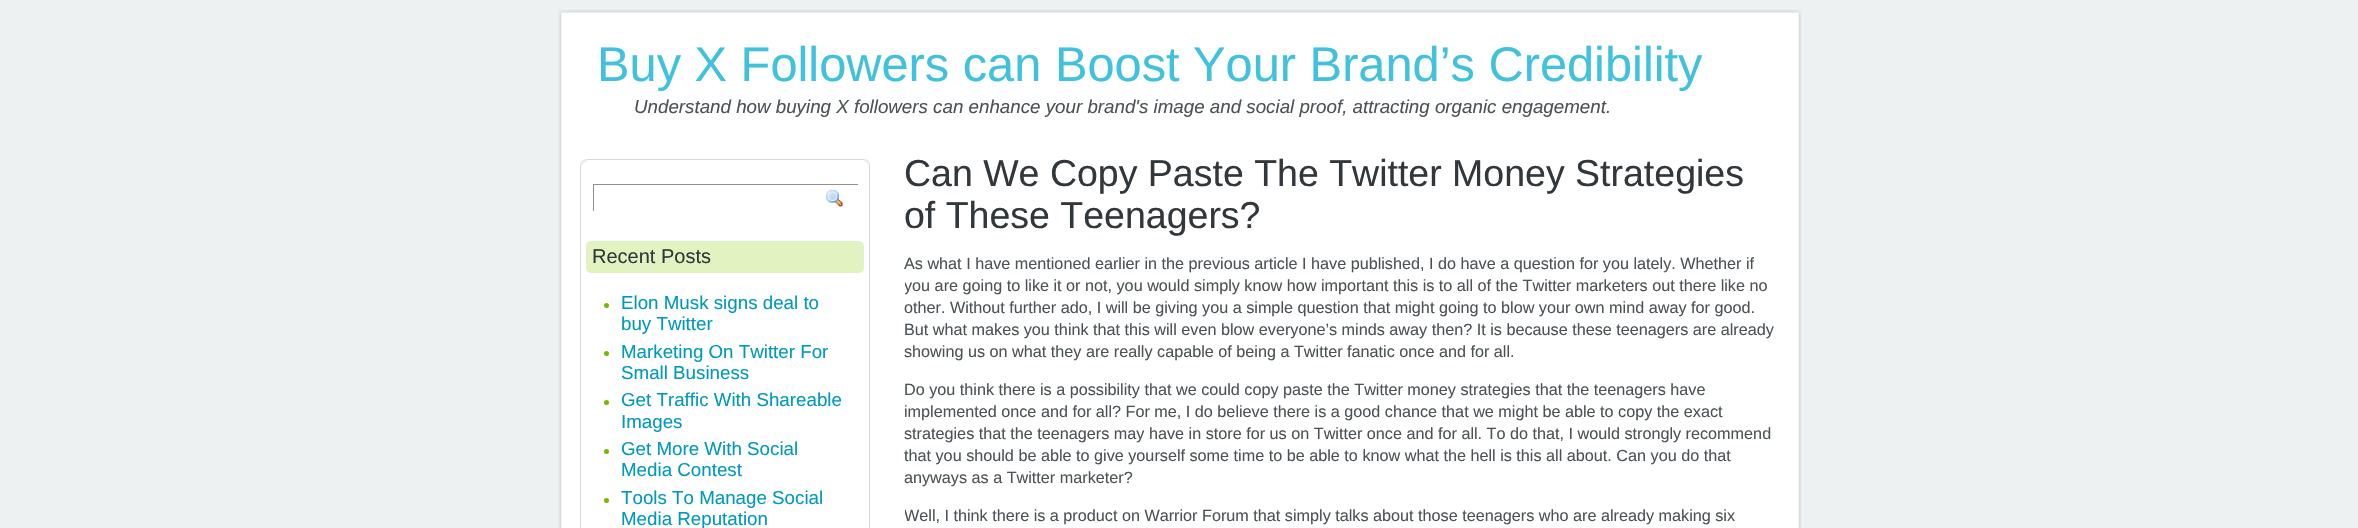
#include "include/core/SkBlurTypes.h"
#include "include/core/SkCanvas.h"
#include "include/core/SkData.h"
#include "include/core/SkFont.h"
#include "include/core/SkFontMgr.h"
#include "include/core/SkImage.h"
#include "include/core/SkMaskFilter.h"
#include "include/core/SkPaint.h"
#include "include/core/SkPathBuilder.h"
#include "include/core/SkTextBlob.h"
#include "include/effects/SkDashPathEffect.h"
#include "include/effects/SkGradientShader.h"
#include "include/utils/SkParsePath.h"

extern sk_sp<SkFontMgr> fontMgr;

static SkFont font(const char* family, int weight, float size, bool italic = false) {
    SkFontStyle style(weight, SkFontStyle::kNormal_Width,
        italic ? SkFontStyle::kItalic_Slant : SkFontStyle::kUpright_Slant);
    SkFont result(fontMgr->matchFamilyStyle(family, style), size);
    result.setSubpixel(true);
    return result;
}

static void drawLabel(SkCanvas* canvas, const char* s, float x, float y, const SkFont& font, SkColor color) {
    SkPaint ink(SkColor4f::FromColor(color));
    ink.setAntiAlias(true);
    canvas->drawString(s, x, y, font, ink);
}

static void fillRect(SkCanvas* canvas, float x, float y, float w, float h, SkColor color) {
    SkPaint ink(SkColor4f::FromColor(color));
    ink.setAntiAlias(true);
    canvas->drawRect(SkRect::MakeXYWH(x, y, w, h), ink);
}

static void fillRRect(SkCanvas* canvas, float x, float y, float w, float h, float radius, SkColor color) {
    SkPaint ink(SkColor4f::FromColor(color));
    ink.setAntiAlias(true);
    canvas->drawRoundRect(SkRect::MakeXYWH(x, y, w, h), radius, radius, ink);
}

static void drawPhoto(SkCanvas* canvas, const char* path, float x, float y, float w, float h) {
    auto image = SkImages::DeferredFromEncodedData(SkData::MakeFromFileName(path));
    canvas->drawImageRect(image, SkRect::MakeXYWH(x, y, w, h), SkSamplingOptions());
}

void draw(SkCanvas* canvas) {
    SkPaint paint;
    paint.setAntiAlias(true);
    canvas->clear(0xFFEDF1F2);
    fillRect(canvas, 1802, 9, 1, 519, 0xFFFFFFFF);
    drawPhoto(canvas, "assets/img1.png", 558, 8, 1245, 520);
    drawPhoto(canvas, "assets/img2.png", 559, 9, 1244, 6);
    SkFont font1 = font("Liberation Sans", 400, 48.75f);
    drawLabel(canvas, "Buy X Followers can Boost Your Brand’s Credibility", 597, 81, font1, 0xFF40C2DE);
    SkFont font2 = font("Liberation Sans", 400, 18.75f, true);
    drawLabel(canvas, "Understand how buying X followers can enhance your brand's image and social proof, attracting organic engagement.", 634, 113, font2, 0xFF4C5356);
    paint.setStroke(true);
    paint.setStrokeWidth(1);
    paint.setColor(0xFFD7DADC);
    canvas->drawRect(SkRect::MakeXYWH(580.5f, 159.5f, 289, 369), paint);
    drawPhoto(canvas, "assets/img3.png", 580, 158, 8, 7);
    drawPhoto(canvas, "assets/img4.png", 864, 158, 6, 7);
    fillRect(canvas, 593, 184, 265, 1, 0xFF909090);
    fillRect(canvas, 593, 185, 1, 26, 0xFF909090);
    drawPhoto(canvas, "assets/img5.png", 826, 189, 17, 18);
    fillRRect(canvas, 586, 241, 278, 32, 5, 0xFFE2F2C0);
    SkFont font3 = font("Liberation Sans", 400, 20);
    drawLabel(canvas, "Recent Posts", 592, 263, font3, 0xFF31373A);
    paint.setStroke(false);
    paint.setColor(0xFF7CB500);
    canvas->drawCircle(606.5f, 305.5f, 2.5f, paint);
    SkFont font4 = font("Liberation Sans", 400, 18.75f);
    drawLabel(canvas, "Elon Musk signs deal to", 621, 309, font4, 0xFF0099BB);
    drawLabel(canvas, "buy Twitter", 621, 330, font4, 0xFF0099BB);
    canvas->drawCircle(606.5f, 353.5f, 2.5f, paint);
    drawLabel(canvas, "Marketing On Twitter For", 621, 358, font4, 0xFF0099BB);
    drawLabel(canvas, "Small Business", 621, 379, font4, 0xFF0099BB);
    canvas->drawCircle(606.5f, 402.5f, 2.5f, paint);
    drawLabel(canvas, "Get Traffic With Shareable", 621, 406, font4, 0xFF0099BB);
    drawLabel(canvas, "Images", 621, 428, font4, 0xFF0099BB);
    canvas->drawCircle(606.5f, 451.5f, 2.5f, paint);
    drawLabel(canvas, "Get More With Social", 621, 455, font4, 0xFF0099BB);
    drawLabel(canvas, "Media Contest", 621, 476, font4, 0xFF0099BB);
    canvas->drawCircle(606.5f, 500.5f, 2.5f, paint);
    drawLabel(canvas, "Tools To Manage Social", 621, 504, font4, 0xFF0099BB);
    drawLabel(canvas, "Media Reputation", 621, 525, font4, 0xFF0099BB);
    SkFont font5 = font("Liberation Sans", 400, 37.5f);
    drawLabel(canvas, "Can We Copy Paste The Twitter Money Strategies", 904, 186, font5, 0xFF31373A);
    drawLabel(canvas, "of These Teenagers?", 904, 228, font5, 0xFF31373A);
    SkFont font6 = font("Liberation Sans", 400, 16.2f);
    drawLabel(canvas, "As what I have mentioned earlier in the previous article I have published, I do have a question for you lately. Whether if", 904, 269, font6, 0xFF4C5356);
    canvas->save();
    canvas->clipRect(SkRect::MakeXYWH(905, 153, 875, 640));
    drawLabel(canvas, "you are going to like it or not, you would simply know how important this is to all of the Twitter marketers out there like no", 904, 291, font6, 0xFF4C5356);
    canvas->restore();
    drawLabel(canvas, "other. Without further ado, I will be giving you a simple question that might going to blow your own mind away for good.", 904, 313, font6, 0xFF4C5356);
    drawLabel(canvas, "But what makes you think that this will even blow everyone’s minds away then? It is because these teenagers are already", 904, 335, font6, 0xFF4C5356);
    drawLabel(canvas, "showing us on what they are really capable of being a Twitter fanatic once and for all.", 904, 357, font6, 0xFF4C5356);
    drawLabel(canvas, "Do you think there is a possibility that we could copy paste the Twitter money strategies that the teenagers have", 904, 395, font6, 0xFF4C5356);
    drawLabel(canvas, "implemented once and for all? For me, I do believe there is a good chance that we might be able to copy the exact", 904, 417, font6, 0xFF4C5356);
    drawLabel(canvas, "strategies that the teenagers may have in store for us on Twitter once and for all. To do that, I would strongly recommend", 904, 439, font6, 0xFF4C5356);
    drawLabel(canvas, "that you should be able to give yourself some time to be able to know what the hell is this all about. Can you do that", 904, 461, font6, 0xFF4C5356);
    drawLabel(canvas, "anyways as a Twitter marketer?", 904, 483, font6, 0xFF4C5356);
    canvas->save();
    canvas->clipRect(SkRect::MakeXYWH(905, 153, 875, 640));
    drawLabel(canvas, "Well, I think there is a product on Warrior Forum that simply talks about those teenagers who are already making six", 904, 521, font6, 0xFF4C5356);
    canvas->restore();
}
